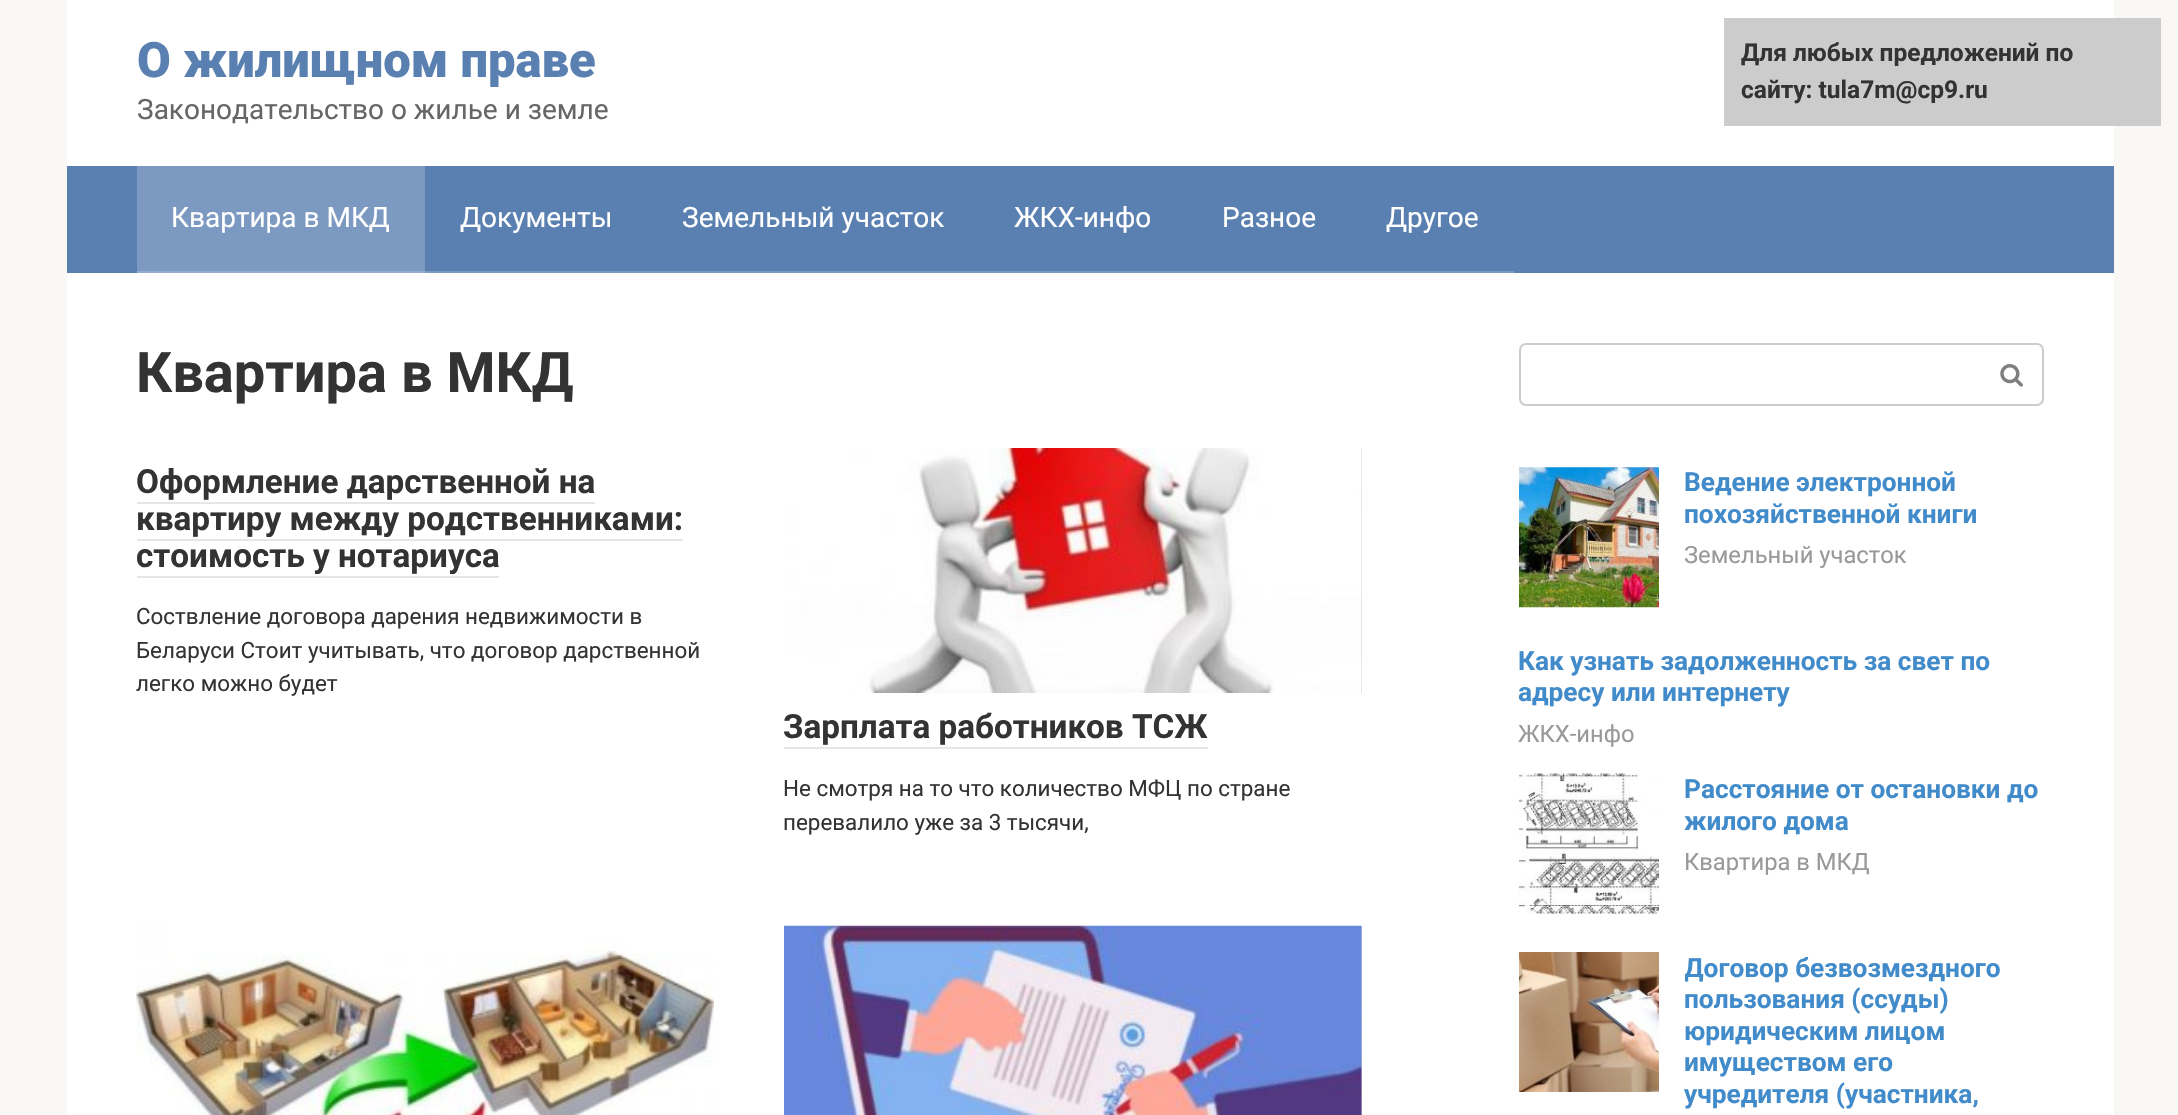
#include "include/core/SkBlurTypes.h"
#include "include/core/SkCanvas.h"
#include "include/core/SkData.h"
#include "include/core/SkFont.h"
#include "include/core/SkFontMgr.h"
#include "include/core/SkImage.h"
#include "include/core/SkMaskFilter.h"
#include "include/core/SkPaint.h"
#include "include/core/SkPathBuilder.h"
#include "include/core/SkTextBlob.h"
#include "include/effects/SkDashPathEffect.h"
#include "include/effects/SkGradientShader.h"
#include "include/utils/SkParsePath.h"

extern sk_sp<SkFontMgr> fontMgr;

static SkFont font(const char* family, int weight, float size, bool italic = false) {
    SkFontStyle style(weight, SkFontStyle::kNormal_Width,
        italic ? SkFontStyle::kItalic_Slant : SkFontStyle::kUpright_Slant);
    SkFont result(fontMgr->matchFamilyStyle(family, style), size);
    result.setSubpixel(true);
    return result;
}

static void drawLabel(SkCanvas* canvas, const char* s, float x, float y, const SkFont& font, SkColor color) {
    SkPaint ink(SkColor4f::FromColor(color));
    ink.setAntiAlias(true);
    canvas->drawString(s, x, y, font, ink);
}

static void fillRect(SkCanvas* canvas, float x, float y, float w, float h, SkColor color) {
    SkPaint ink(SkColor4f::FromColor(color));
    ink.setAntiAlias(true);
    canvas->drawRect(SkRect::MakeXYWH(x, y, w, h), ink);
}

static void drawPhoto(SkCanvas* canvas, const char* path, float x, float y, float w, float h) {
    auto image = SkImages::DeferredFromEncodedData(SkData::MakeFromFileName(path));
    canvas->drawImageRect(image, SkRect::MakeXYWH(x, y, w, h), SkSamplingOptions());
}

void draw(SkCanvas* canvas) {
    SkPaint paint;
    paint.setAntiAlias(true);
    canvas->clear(0xFFF9F8F5);
    fillRect(canvas, 67, 0, 2047, 166, 0xFFFFFFFF);
    SkFont font1 = font("Roboto", 900, 49);
    drawLabel(canvas, "О жилищном праве", 137, 77, font1, 0xFF5A80B1);
    SkFont font2 = font("Roboto", 400, 28);
    drawLabel(canvas, "Законодательство о жилье и земле", 137, 119, font2, 0xFF666666);
    fillRect(canvas, 67, 166, 2047, 107, 0xFF5A80B1);
    fillRect(canvas, 137, 166, 288, 105, 0xFF7B99C1);
    fillRect(canvas, 137, 271, 288, 2, 0xFF95ADCD);
    drawLabel(canvas, "Квартира в МКД", 171, 227, font2, 0xFFFFFFFF);
    fillRect(canvas, 425, 271, 1089, 2, 0xFF7B99C1);
    drawLabel(canvas, "Документы", 460, 227, font2, 0xFFFFFFFF);
    drawLabel(canvas, "Земельный участок", 682, 227, font2, 0xFFFFFFFF);
    drawLabel(canvas, "ЖКХ-инфо", 1014, 227, font2, 0xFFFFFFFF);
    drawLabel(canvas, "Разное", 1222, 227, font2, 0xFFFFFFFF);
    drawLabel(canvas, "Другое", 1386, 227, font2, 0xFFFFFFFF);
    fillRect(canvas, 67, 273, 2047, 842, 0xFFFFFFFF);
    SkFont font3 = font("Roboto", 700, 56);
    drawLabel(canvas, "Квартира в МКД", 136, 392, font3, 0xFF333333);
    SkFont font4 = font("Roboto", 700, 33.25f);
    drawLabel(canvas, "Оформление дарственной на", 136, 493, font4, 0xFF333333);
    fillRect(canvas, 137, 502, 458, 2, 0xFFE6E6E6);
    drawLabel(canvas, "квартиру между родственниками:", 136, 530, font4, 0xFF333333);
    fillRect(canvas, 137, 539, 546, 2, 0xFFE6E6E6);
    drawLabel(canvas, "стоимость у нотариуса", 136, 567, font4, 0xFF333333);
    fillRect(canvas, 137, 576, 362, 2, 0xFFE6E6E6);
    SkFont font5 = font("Roboto", 400, 22.4f);
    drawLabel(canvas, "Соствление договора дарения недвижимости в", 136, 624, font5, 0xFF333333);
    drawLabel(canvas, "Беларуси Стоит учитывать, что договор дарственной", 136, 658, font5, 0xFF333333);
    drawLabel(canvas, "легко можно будет", 136, 691, font5, 0xFF333333);
    fillRect(canvas, 1361, 448, 1, 245, 0xFFD0CBCB);
    drawPhoto(canvas, "assets/img1.png", 784, 448, 578, 245);
    drawLabel(canvas, "Зарплата работников ТСЖ", 783, 738, font4, 0xFF333333);
    fillRect(canvas, 784, 747, 424, 2, 0xFFE6E6E6);
    drawLabel(canvas, "Не смотря на то что количество МФЦ по стране", 783, 796, font5, 0xFF333333);
    drawLabel(canvas, "перевалило уже за 3 тысячи,", 783, 830, font5, 0xFF333333);
    drawPhoto(canvas, "assets/img2.png", 136, 926, 578, 189);
    fillRect(canvas, 1361, 926, 1, 189, 0xFFD0CBCB);
    drawPhoto(canvas, "assets/img3.png", 784, 925, 578, 190);
    paint.setStroke(true);
    paint.setStrokeWidth(2);
    paint.setColor(0xFFCCCCCC);
    canvas->drawRoundRect(SkRect::MakeXYWH(1520, 344, 523, 61), 6, 6, paint);
    drawPhoto(canvas, "assets/img4.png", 2000, 364, 23, 23);
    drawPhoto(canvas, "assets/img5.png", 1519, 467, 140, 141);
    SkFont font6 = font("Roboto", 700, 26.25f);
    drawLabel(canvas, "Ведение электронной", 1684, 491, font6, 0xFF428BCA);
    drawLabel(canvas, "похозяйственной книги", 1684, 523, font6, 0xFF428BCA);
    SkFont font7 = font("Roboto", 400, 23.75f);
    drawLabel(canvas, "Земельный участок", 1684, 563, font7, 0xFF999999);
    drawLabel(canvas, "Как узнать задолженность за свет по", 1518, 670, font6, 0xFF428BCA);
    drawLabel(canvas, "адресу или интернету", 1518, 701, font6, 0xFF428BCA);
    drawLabel(canvas, "ЖКХ-инфо", 1518, 742, font7, 0xFF999999);
    drawPhoto(canvas, "assets/img6.png", 1519, 773, 140, 141);
    drawLabel(canvas, "Расстояние от остановки до", 1684, 798, font6, 0xFF428BCA);
    drawLabel(canvas, "жилого дома", 1684, 830, font6, 0xFF428BCA);
    drawLabel(canvas, "Квартира в МКД", 1684, 870, font7, 0xFF999999);
    drawPhoto(canvas, "assets/img7.png", 1519, 952, 140, 140);
    canvas->save();
    canvas->clipRect(SkRect::MakeXYWH(1685, 952, 359, 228));
    drawLabel(canvas, "Договор безвозмездного", 1684, 977, font6, 0xFF428BCA);
    canvas->restore();
    drawLabel(canvas, "пользования (ссуды)", 1684, 1008, font6, 0xFF428BCA);
    drawLabel(canvas, "юридическим лицом", 1684, 1040, font6, 0xFF428BCA);
    drawLabel(canvas, "имуществом его", 1684, 1071, font6, 0xFF428BCA);
    drawLabel(canvas, "учредителя (участника,", 1684, 1103, font6, 0xFF428BCA);
    fillRect(canvas, 1724, 18, 437, 108, 0xFFCCCCCC);
    SkFont font8 = font("Roboto", 700, 24.5f);
    drawLabel(canvas, "Для любых предложений по", 1741, 61, font8, 0xFF333333);
    drawLabel(canvas, "сайту: tula7m@cp9.ru", 1741, 98, font8, 0xFF333333);
}
